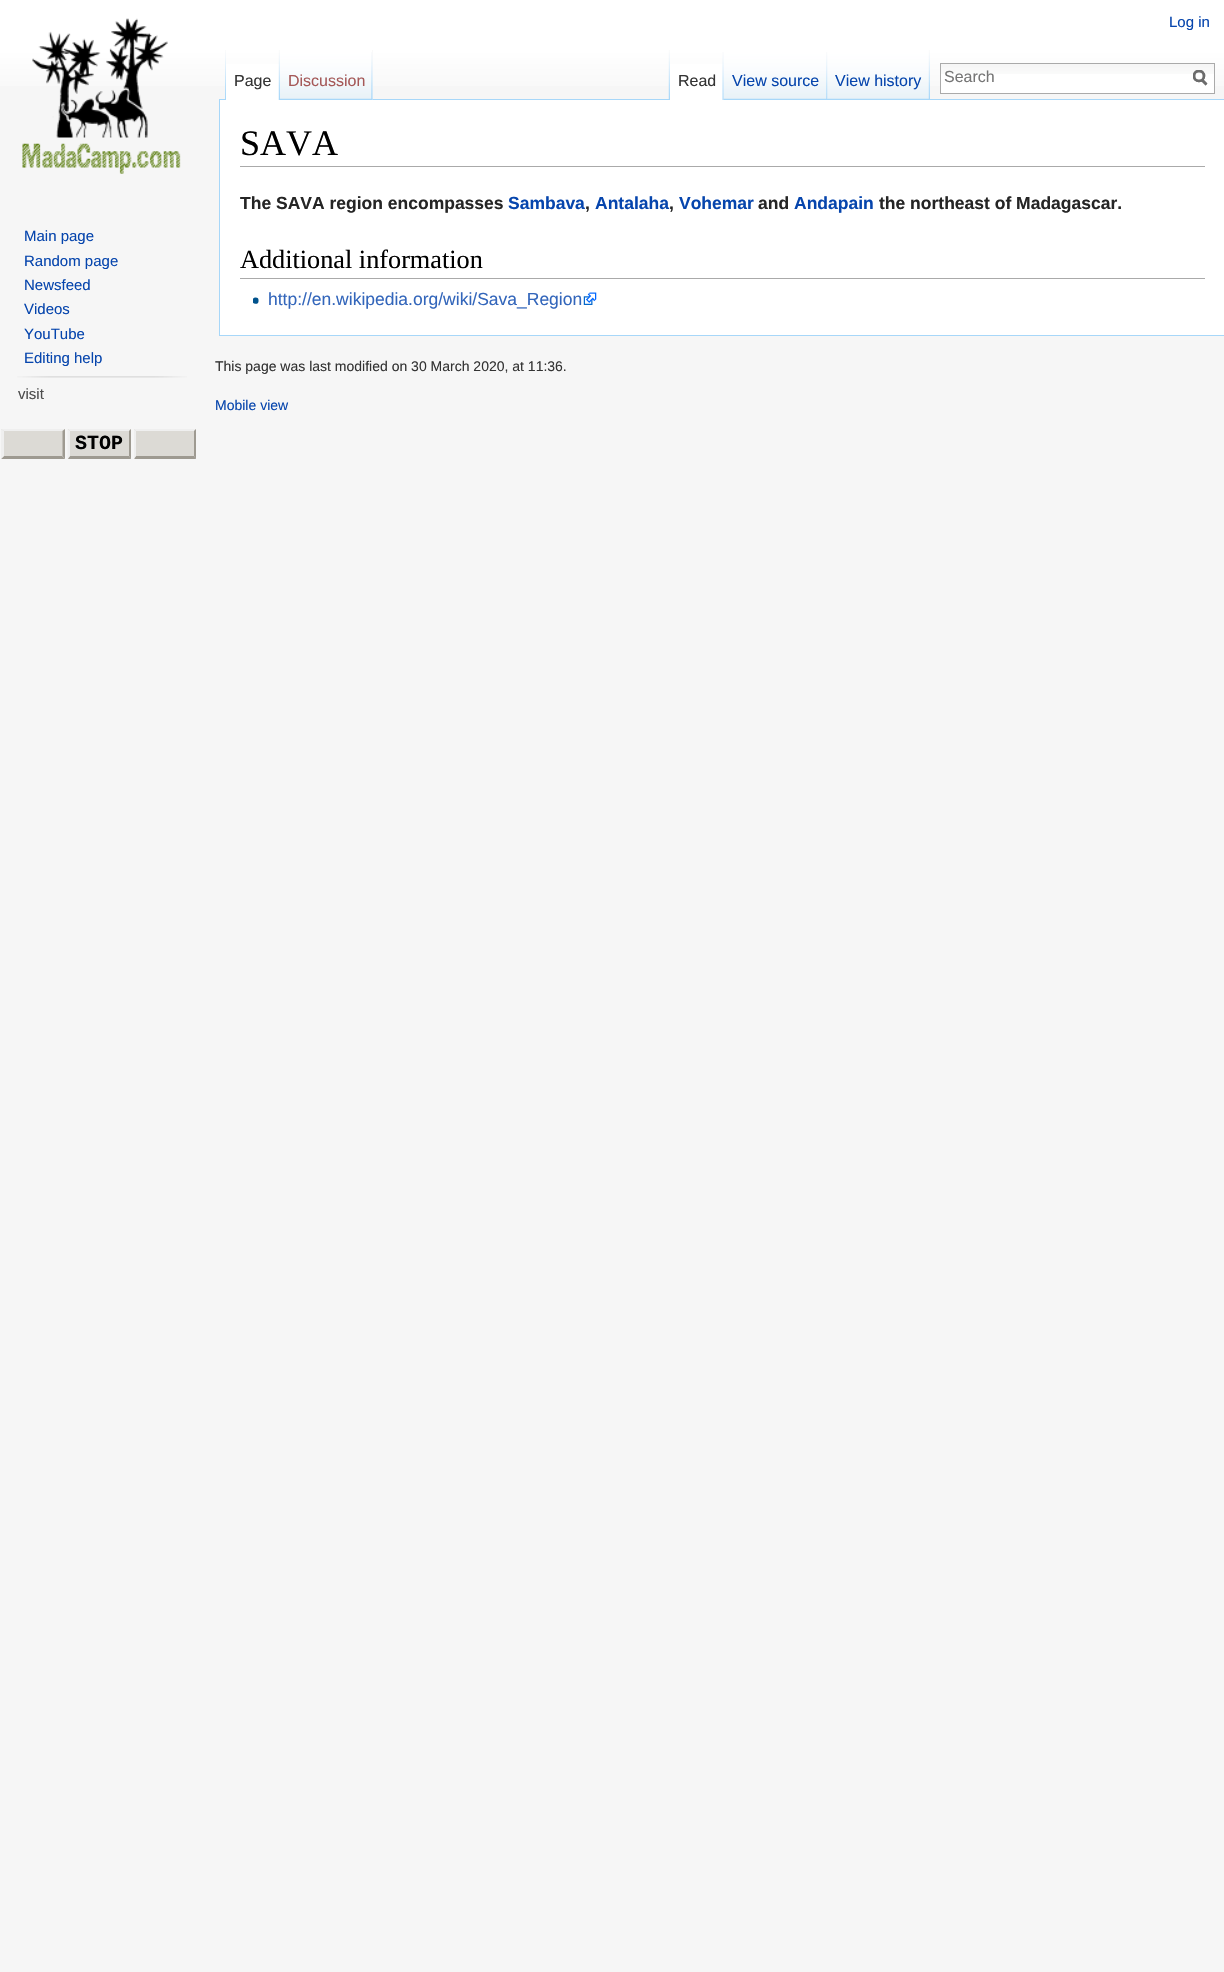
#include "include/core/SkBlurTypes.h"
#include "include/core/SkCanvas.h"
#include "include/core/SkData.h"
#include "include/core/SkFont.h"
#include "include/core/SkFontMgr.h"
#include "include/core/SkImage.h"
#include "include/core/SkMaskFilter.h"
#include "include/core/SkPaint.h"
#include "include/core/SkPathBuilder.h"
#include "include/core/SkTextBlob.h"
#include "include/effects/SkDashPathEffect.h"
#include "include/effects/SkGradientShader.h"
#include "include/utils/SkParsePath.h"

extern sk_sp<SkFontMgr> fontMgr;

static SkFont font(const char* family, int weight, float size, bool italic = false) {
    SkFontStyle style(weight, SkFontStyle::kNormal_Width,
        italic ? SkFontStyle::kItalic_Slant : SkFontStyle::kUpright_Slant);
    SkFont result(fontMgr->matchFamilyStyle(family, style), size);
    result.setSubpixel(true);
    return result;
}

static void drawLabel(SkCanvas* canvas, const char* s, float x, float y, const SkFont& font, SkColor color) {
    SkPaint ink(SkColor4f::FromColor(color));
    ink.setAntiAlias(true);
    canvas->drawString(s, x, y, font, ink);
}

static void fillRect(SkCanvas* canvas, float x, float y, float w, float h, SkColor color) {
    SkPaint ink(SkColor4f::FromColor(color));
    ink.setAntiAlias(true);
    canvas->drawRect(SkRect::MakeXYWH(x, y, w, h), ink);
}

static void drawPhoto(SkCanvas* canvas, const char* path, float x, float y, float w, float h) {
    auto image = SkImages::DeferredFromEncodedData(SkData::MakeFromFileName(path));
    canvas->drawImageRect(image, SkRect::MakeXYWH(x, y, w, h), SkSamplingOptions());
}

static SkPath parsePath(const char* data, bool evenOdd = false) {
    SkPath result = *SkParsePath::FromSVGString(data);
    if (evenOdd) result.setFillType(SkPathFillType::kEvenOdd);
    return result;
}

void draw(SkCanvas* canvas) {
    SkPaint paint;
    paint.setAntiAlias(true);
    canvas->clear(0xFFF6F6F6);
    {
        const SkColor colors[] = {0xFFFFFFFF, 0xFFF6F6F6};
        const float stops[] = {0.5f, 1};
        const SkPoint ends[] = {{613, 0}, {613, 100}};
        paint.setShader(SkGradientShader::MakeLinear(ends, colors, stops, 2, SkTileMode::kClamp));
        paint.setAlpha(255);
    }
    canvas->drawRect(SkRect::MakeXYWH(0, 0, 1224, 86), paint);
    SkFont font1 = font("Liberation Sans", 400, 15);
    drawLabel(canvas, "Log in", 1169, 27, font1, 0xFF0645AD);
    drawPhoto(canvas, "assets/img1.png", 225, 50, 1, 49);
    fillRect(canvas, 219, 99, 1005, 1, 0xFFA7D7F9);
    fillRect(canvas, 226, 64, 53, 36, 0xFFFFFFFF);
    drawPhoto(canvas, "assets/img2.png", 278, 50, 2, 50);
    SkFont font2 = font("Liberation Sans", 400, 16);
    drawLabel(canvas, "Page", 234, 86, font2, 0xFF333333);
    fillRect(canvas, 372, 50, 1, 50, 0xFFF3F3F3);
    drawPhoto(canvas, "assets/img3.png", 280, 50, 93, 50);
    drawPhoto(canvas, "assets/img4.png", 371, 52, 2, 48);
    drawLabel(canvas, "Discussion", 288, 86, font2, 0xFFA55858);
    drawPhoto(canvas, "assets/img5.png", 668, 50, 2, 49);
    fillRect(canvas, 670, 64, 54, 36, 0xFFFFFFFF);
    drawPhoto(canvas, "assets/img6.png", 722, 52, 2, 48);
    drawLabel(canvas, "Read", 678, 86, font2, 0xFF333333);
    drawPhoto(canvas, "assets/img7.png", 723, 50, 105, 50);
    drawPhoto(canvas, "assets/img4.png", 826, 52, 2, 48);
    drawLabel(canvas, "View source", 732, 86, font2, 0xFF0645AD);
    drawPhoto(canvas, "assets/img8.png", 827, 50, 103, 50);
    drawPhoto(canvas, "assets/img9.png", 928, 50, 2, 49);
    drawLabel(canvas, "View history", 835, 86, font2, 0xFF0645AD);
    fillRect(canvas, 941, 74, 273, 19, 0xFFFFFFFF);
    drawPhoto(canvas, "assets/img10.png", 941, 64, 273, 10);
    paint.setStroke(true);
    paint.setStrokeWidth(1);
    paint.setShader(nullptr);
    paint.setColor(0xFFAAAAAA);
    canvas->drawRect(SkRect::MakeXYWH(940.5f, 63.5f, 274, 30), paint);
    drawLabel(canvas, "Search", 944, 82, font2, 0xFF757575);
    paint.setStrokeWidth(2.5f);
    paint.setColor(0xFF6C6C6C);
    canvas->drawPath(parsePath("M1206.5 84.5L1201.5 79.5"), paint);
    canvas->save();
    canvas->clipRect(SkRect::MakeXYWH(1193, 70, 15, 16));
    canvas->drawCircle(1199, 76, 5, paint);
    canvas->restore();
    canvas->drawPath(parsePath("M1206.5 84.5L1201.5 79.5"), paint);
    canvas->save();
    canvas->clipRect(SkRect::MakeXYWH(1193, 70, 15, 16));
    canvas->drawCircle(1199, 76, 5, paint);
    canvas->restore();
    drawPhoto(canvas, "assets/img11.png", 22, 18, 159, 156);
    drawLabel(canvas, "Main page", 24, 241, font1, 0xFF0645AD);
    drawLabel(canvas, "Random page", 24, 266, font1, 0xFF0645AD);
    drawLabel(canvas, "Newsfeed", 24, 290, font1, 0xFF0645AD);
    drawLabel(canvas, "Videos", 24, 314, font1, 0xFF0645AD);
    drawLabel(canvas, "YouTube", 24, 339, font1, 0xFF0645AD);
    drawLabel(canvas, "Editing help", 24, 363, font1, 0xFF0645AD);
    drawPhoto(canvas, "assets/img12.png", 17, 376, 170, 2);
    drawLabel(canvas, "visit", 18, 399, font1, 0xFF4D4D4D);
    fillRect(canvas, 1, 429, 64, 30, 0xFFDCDAD5);
    paint.setStroke(false);
    paint.setColor(0xFFEFEFEF);
    canvas->drawPath(parsePath("M1 429H65L62 431H4Z"), paint);
    paint.setColor(0xFF9E9A91);
    canvas->drawPath(parsePath("M65 429V459L62.5 456V431Z"), paint);
    canvas->drawPath(parsePath("M65 459H1L4 456H62Z"), paint);
    paint.setColor(0xFFEFEFEF);
    canvas->drawPath(parsePath("M1 459V429L4 431V456Z"), paint);
    fillRect(canvas, 68, 429, 63, 30, 0xFFDCDAD5);
    canvas->drawPath(parsePath("M68 429H131L129 431H70Z"), paint);
    paint.setColor(0xFF9E9A91);
    canvas->drawPath(parsePath("M131 429V459L129 456V431Z"), paint);
    canvas->drawPath(parsePath("M131 459H68L70 456H129Z"), paint);
    paint.setColor(0xFFEFEFEF);
    canvas->drawPath(parsePath("M67.5 459V429L70 431V456Z"), paint);
    SkFont font3 = font("Liberation Mono", 700, 20);
    drawLabel(canvas, "STOP", 75, 449, font3, 0xFF000000);
    fillRect(canvas, 134, 429, 62, 30, 0xFFDCDAD5);
    canvas->drawPath(parsePath("M134 429H196L194 431H136Z"), paint);
    paint.setColor(0xFF9E9A91);
    canvas->drawPath(parsePath("M196 429V459L194 456V431Z"), paint);
    canvas->drawPath(parsePath("M196 459H134L136 456H194Z"), paint);
    paint.setColor(0xFFEFEFEF);
    canvas->drawPath(parsePath("M134 459V429L136 431V456Z"), paint);
    fillRect(canvas, 220, 100, 1004, 235, 0xFFFFFFFF);
    fillRect(canvas, 219, 335, 1005, 1, 0xFFA7D7F9);
    fillRect(canvas, 219, 99, 1, 237, 0xFFA7D7F9);
    fillRect(canvas, 240, 166, 965, 1, 0xFFAAAAAA);
    SkFont font4 = font("Liberation Serif", 400, 36);
    drawLabel(canvas, "SAVA", 240, 155, font4, 0xFF000000);
    SkFont font5 = font("Liberation Sans", 700, 17.5f);
    drawLabel(canvas, "The SAVA region encompasses", 240, 209, font5, 0xFF252525);
    drawLabel(canvas, "Sambava", 508, 209, font5, 0xFF0645AD);
    drawLabel(canvas, ",", 585, 209, font5, 0xFF252525);
    drawLabel(canvas, "Antalaha", 595, 209, font5, 0xFF0645AD);
    drawLabel(canvas, ",", 669, 209, font5, 0xFF252525);
    drawLabel(canvas, "Vohemar", 679, 209, font5, 0xFF0645AD);
    drawLabel(canvas, "and", 758, 209, font5, 0xFF252525);
    drawLabel(canvas, "Andapain", 794, 209, font5, 0xFF0645AD);
    drawLabel(canvas, "the northeast of Madagascar.", 879, 209, font5, 0xFF252525);
    fillRect(canvas, 240, 278, 965, 1, 0xFFAAAAAA);
    SkFont font6 = font("Liberation Serif", 400, 26.25f);
    drawLabel(canvas, "Additional information", 240, 268, font6, 0xFF000000);
    drawPhoto(canvas, "assets/img13.png", 253, 297, 6, 7);
    SkFont font7 = font("Liberation Sans", 400, 17.5f);
    drawLabel(canvas, "http://en.wikipedia.org/wiki/Sava_Region", 268, 305, font7, 0xFF3366BB);
    drawPhoto(canvas, "assets/img14.png", 583, 292, 14, 13);
    SkFont font8 = font("Liberation Sans", 400, 14);
    drawLabel(canvas, "This page was last modified on 30 March 2020, at 11:36.", 215, 371, font8, 0xFF333333);
    drawLabel(canvas, "Mobile view", 215, 410, font8, 0xFF0645AD);
}
